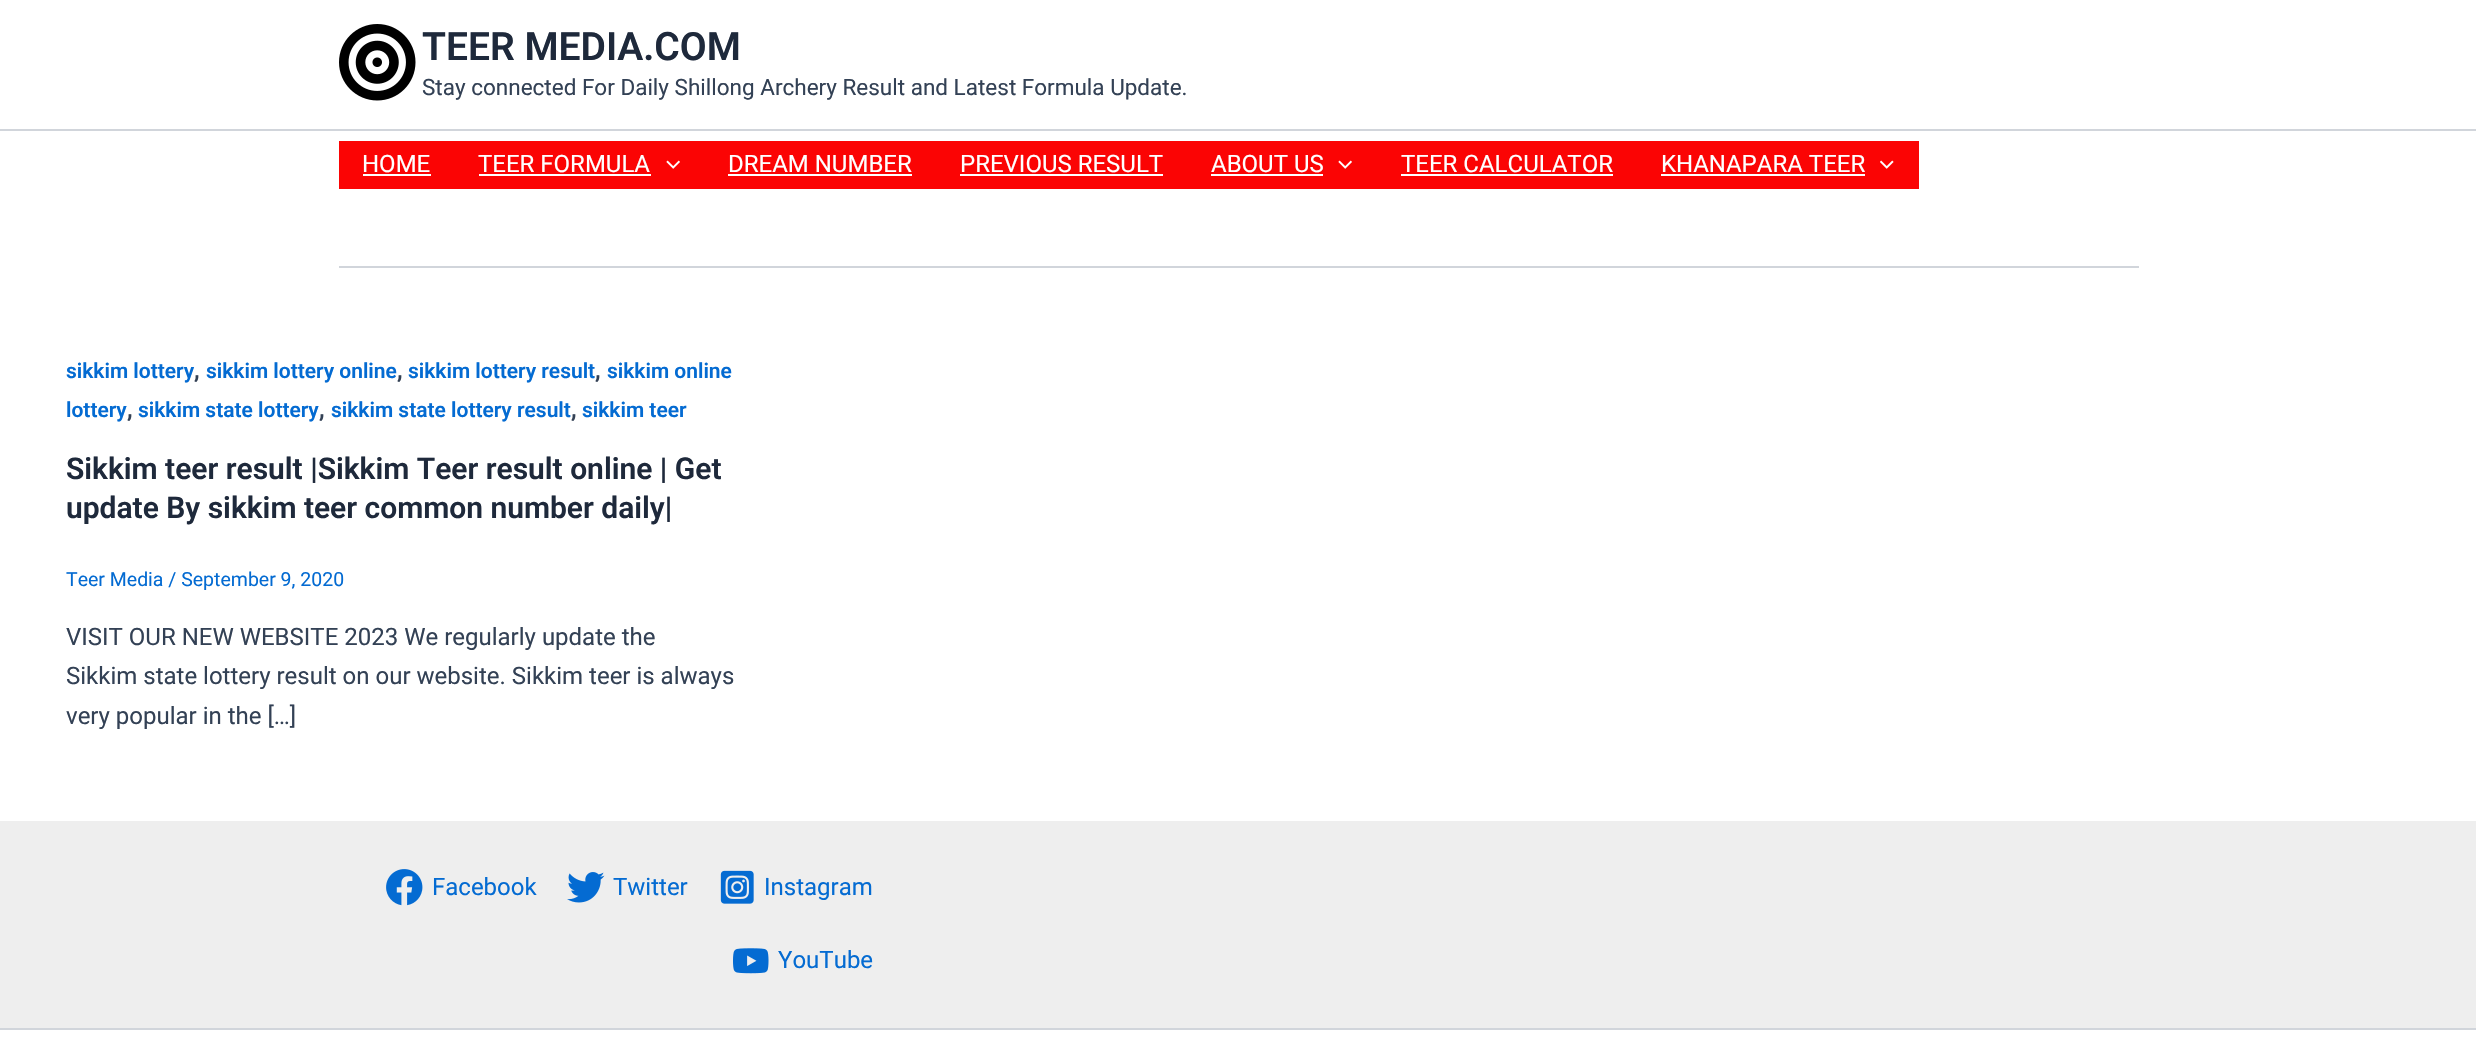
#include "include/core/SkBlurTypes.h"
#include "include/core/SkCanvas.h"
#include "include/core/SkData.h"
#include "include/core/SkFont.h"
#include "include/core/SkFontMgr.h"
#include "include/core/SkImage.h"
#include "include/core/SkMaskFilter.h"
#include "include/core/SkPaint.h"
#include "include/core/SkPathBuilder.h"
#include "include/core/SkTextBlob.h"
#include "include/effects/SkDashPathEffect.h"
#include "include/effects/SkGradientShader.h"
#include "include/utils/SkParsePath.h"

extern sk_sp<SkFontMgr> fontMgr;

static SkFont font(const char* family, int weight, float size, bool italic = false) {
    SkFontStyle style(weight, SkFontStyle::kNormal_Width,
        italic ? SkFontStyle::kItalic_Slant : SkFontStyle::kUpright_Slant);
    SkFont result(fontMgr->matchFamilyStyle(family, style), size);
    result.setSubpixel(true);
    return result;
}

static void drawLabel(SkCanvas* canvas, const char* s, float x, float y, const SkFont& font, SkColor color) {
    SkPaint ink(SkColor4f::FromColor(color));
    ink.setAntiAlias(true);
    canvas->drawString(s, x, y, font, ink);
}

static void fillRect(SkCanvas* canvas, float x, float y, float w, float h, SkColor color) {
    SkPaint ink(SkColor4f::FromColor(color));
    ink.setAntiAlias(true);
    canvas->drawRect(SkRect::MakeXYWH(x, y, w, h), ink);
}

static void drawPhoto(SkCanvas* canvas, const char* path, float x, float y, float w, float h) {
    auto image = SkImages::DeferredFromEncodedData(SkData::MakeFromFileName(path));
    canvas->drawImageRect(image, SkRect::MakeXYWH(x, y, w, h), SkSamplingOptions());
}

void draw(SkCanvas* canvas) {
    SkPaint paint;
    paint.setAntiAlias(true);
    canvas->clear(0xFFFFFFFF);
    fillRect(canvas, 0, 129, 2476, 2, 0xFFD1D5DB);
    drawPhoto(canvas, "assets/img1.png", 339, 24, 77, 77);
    SkFont font1 = font("Roboto", 600, 39);
    drawLabel(canvas, "TEER MEDIA.COM", 422, 60, font1, 0xFF1E293B);
    SkFont font2 = font("Roboto", 400, 22.5f);
    drawLabel(canvas, "Stay connected For Daily Shillong Archery Result and Latest Formula Update.", 422, 95, font2, 0xFF334155);
    fillRect(canvas, 339, 141, 1580, 48, 0xFFFB0404);
    SkFont font3 = font("Roboto", 400, 24);
    drawLabel(canvas, "HOME", 362, 172, font3, 0xFFFFFFFF);
    fillRect(canvas, 363, 174, 68, 2, 0xFFFFFFFF);
    drawLabel(canvas, "TEER FORMULA", 478, 172, font3, 0xFFFFFFFF);
    fillRect(canvas, 479, 174, 172, 2, 0xFFFFFFFF);
    drawPhoto(canvas, "assets/img2.png", 666, 160, 14, 9);
    drawLabel(canvas, "DREAM NUMBER", 728, 172, font3, 0xFFFFFFFF);
    fillRect(canvas, 728, 174, 184, 2, 0xFFFFFFFF);
    drawLabel(canvas, "PREVIOUS RESULT", 960, 172, font3, 0xFFFFFFFF);
    fillRect(canvas, 960, 174, 203, 2, 0xFFFFFFFF);
    drawLabel(canvas, "ABOUT US", 1211, 172, font3, 0xFFFFFFFF);
    fillRect(canvas, 1211, 174, 112, 2, 0xFFFFFFFF);
    drawPhoto(canvas, "assets/img2.png", 1338, 160, 14, 9);
    drawLabel(canvas, "TEER CALCULATOR", 1401, 172, font3, 0xFFFFFFFF);
    fillRect(canvas, 1401, 174, 212, 2, 0xFFFFFFFF);
    drawLabel(canvas, "KHANAPARA TEER", 1661, 172, font3, 0xFFFFFFFF);
    fillRect(canvas, 1661, 174, 204, 2, 0xFFFFFFFF);
    drawPhoto(canvas, "assets/img3.png", 1880, 160, 14, 9);
    fillRect(canvas, 339, 266, 1800, 2, 0xFFD1D5DB);
    SkFont font4 = font("Roboto", 600, 21);
    drawLabel(canvas, "sikkim lottery", 66, 378, font4, 0xFF046BD2);
    SkFont font5 = font("Roboto", 600, 24);
    drawLabel(canvas, ",", 194, 378, font5, 0xFF334155);
    drawLabel(canvas, "sikkim lottery online", 206, 378, font4, 0xFF046BD2);
    drawLabel(canvas, ",", 397, 378, font5, 0xFF334155);
    drawLabel(canvas, "sikkim lottery result", 408, 378, font4, 0xFF046BD2);
    drawLabel(canvas, ",", 595, 378, font5, 0xFF334155);
    drawLabel(canvas, "sikkim online", 607, 378, font4, 0xFF046BD2);
    drawLabel(canvas, "lottery", 66, 417, font4, 0xFF046BD2);
    drawLabel(canvas, ",", 127, 417, font5, 0xFF334155);
    drawLabel(canvas, "sikkim state lottery", 138, 417, font4, 0xFF046BD2);
    drawLabel(canvas, ",", 319, 417, font5, 0xFF334155);
    drawLabel(canvas, "sikkim state lottery result", 331, 417, font4, 0xFF046BD2);
    drawLabel(canvas, ",", 571, 417, font5, 0xFF334155);
    drawLabel(canvas, "sikkim teer", 582, 417, font4, 0xFF046BD2);
    SkFont font6 = font("Roboto", 600, 30);
    drawLabel(canvas, "Sikkim teer result |Sikkim Teer result online | Get", 66, 479, font6, 0xFF1E293B);
    drawLabel(canvas, "update By sikkim teer common number daily|", 66, 518, font6, 0xFF1E293B);
    SkFont font7 = font("Roboto", 400, 19.5f);
    drawLabel(canvas, "Teer Media / September 9, 2020", 66, 586, font7, 0xFF046BD2);
    drawLabel(canvas, "VISIT OUR NEW WEBSITE 2023 We regularly update the", 66, 645, font3, 0xFF334155);
    drawLabel(canvas, "Sikkim state lottery result on our website. Sikkim teer is always", 66, 684, font3, 0xFF334155);
    drawLabel(canvas, "very popular in the […]", 66, 724, font3, 0xFF334155);
    fillRect(canvas, 0, 821, 2476, 207, 0xFFEEEEEE);
    drawPhoto(canvas, "assets/img4.png", 386, 869, 37, 37);
    drawLabel(canvas, "Facebook", 432, 895, font3, 0xFF046BD2);
    drawPhoto(canvas, "assets/img5.png", 567, 872, 38, 31);
    drawLabel(canvas, "Twitter", 613, 895, font3, 0xFF046BD2);
    drawPhoto(canvas, "assets/img6.png", 720, 870, 34, 34);
    drawLabel(canvas, "Instagram", 764, 895, font3, 0xFF046BD2);
    drawPhoto(canvas, "assets/img7.png", 733, 948, 36, 26);
    drawLabel(canvas, "YouTube", 778, 968, font3, 0xFF046BD2);
    fillRect(canvas, 0, 1028, 2476, 2, 0xFFD1D5DB);
}
